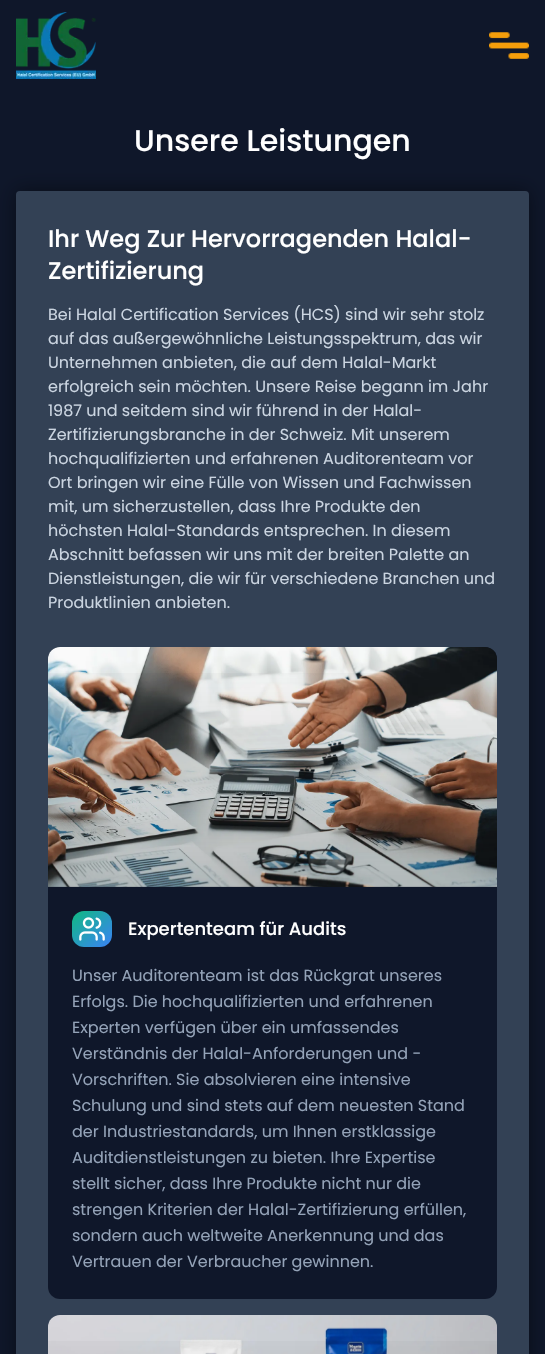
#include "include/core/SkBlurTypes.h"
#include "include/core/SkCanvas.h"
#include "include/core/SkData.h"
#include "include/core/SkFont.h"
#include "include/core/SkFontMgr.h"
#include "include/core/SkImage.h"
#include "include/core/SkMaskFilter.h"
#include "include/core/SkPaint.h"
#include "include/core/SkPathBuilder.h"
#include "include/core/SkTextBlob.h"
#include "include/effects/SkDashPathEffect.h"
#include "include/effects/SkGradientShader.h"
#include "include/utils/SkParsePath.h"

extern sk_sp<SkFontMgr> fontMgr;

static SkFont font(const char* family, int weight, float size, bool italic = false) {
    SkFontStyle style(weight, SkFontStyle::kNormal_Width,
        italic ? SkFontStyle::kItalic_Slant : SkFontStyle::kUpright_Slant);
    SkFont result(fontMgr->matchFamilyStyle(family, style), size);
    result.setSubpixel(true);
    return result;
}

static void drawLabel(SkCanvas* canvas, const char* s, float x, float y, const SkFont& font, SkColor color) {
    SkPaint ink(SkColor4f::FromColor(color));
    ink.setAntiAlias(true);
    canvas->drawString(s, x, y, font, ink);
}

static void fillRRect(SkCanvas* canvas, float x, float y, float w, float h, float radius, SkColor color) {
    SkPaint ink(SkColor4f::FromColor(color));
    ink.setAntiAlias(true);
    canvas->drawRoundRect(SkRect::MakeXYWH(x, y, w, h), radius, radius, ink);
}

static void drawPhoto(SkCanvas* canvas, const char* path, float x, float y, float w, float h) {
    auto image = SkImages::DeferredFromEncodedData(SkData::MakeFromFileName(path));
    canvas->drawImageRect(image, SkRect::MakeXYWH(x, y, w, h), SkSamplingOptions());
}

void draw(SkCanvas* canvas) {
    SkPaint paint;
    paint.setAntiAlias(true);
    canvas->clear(0xFF0F172A);
    drawPhoto(canvas, "assets/img1.png", 16, 12, 80, 67);
    drawPhoto(canvas, "assets/img2.png", 489, 32, 40, 27);
    SkFont font1 = font("Poppins", 500, 30);
    drawLabel(canvas, "Unsere Leistungen", 134, 151, font1, 0xFFFFFFFF);
    paint.setColor(0x75000000);
    paint.setMaskFilter(SkMaskFilter::MakeBlur(kNormal_SkBlurStyle, 10));
    canvas->drawRoundRect(SkRect::MakeXYWH(16, 191, 513, 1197), 4, 4, paint);
    paint.setMaskFilter(nullptr);
    fillRRect(canvas, 16, 191, 513, 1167, 4, 0xFF334155);
    SkFont font2 = font("Poppins", 500, 24);
    drawLabel(canvas, "Ihr Weg Zur Hervorragenden Halal-", 48, 247, font2, 0xFFFFFFFF);
    drawLabel(canvas, "Zertifizierung", 48, 279, font2, 0xFFFFFFFF);
    SkFont font3 = font("Poppins", 400, 16);
    drawLabel(canvas, "Bei Halal Certification Services (HCS) sind wir sehr stolz", 48, 320, font3, 0xFFCBD5E1);
    drawLabel(canvas, "auf das außergewöhnliche Leistungsspektrum, das wir", 48, 344, font3, 0xFFCBD5E1);
    drawLabel(canvas, "Unternehmen anbieten, die auf dem Halal-Markt", 48, 368, font3, 0xFFCBD5E1);
    drawLabel(canvas, "erfolgreich sein möchten. Unsere Reise begann im Jahr", 48, 392, font3, 0xFFCBD5E1);
    drawLabel(canvas, "1987 und seitdem sind wir führend in der Halal-", 48, 416, font3, 0xFFCBD5E1);
    drawLabel(canvas, "Zertifizierungsbranche in der Schweiz. Mit unserem", 48, 440, font3, 0xFFCBD5E1);
    drawLabel(canvas, "hochqualifizierten und erfahrenen Auditorenteam vor", 48, 464, font3, 0xFFCBD5E1);
    drawLabel(canvas, "Ort bringen wir eine Fülle von Wissen und Fachwissen", 48, 488, font3, 0xFFCBD5E1);
    drawLabel(canvas, "mit, um sicherzustellen, dass Ihre Produkte den", 48, 512, font3, 0xFFCBD5E1);
    drawLabel(canvas, "höchsten Halal-Standards entsprechen. In diesem", 48, 536, font3, 0xFFCBD5E1);
    drawLabel(canvas, "Abschnitt befassen wir uns mit der breiten Palette an", 48, 560, font3, 0xFFCBD5E1);
    drawLabel(canvas, "Dienstleistungen, die wir für verschiedene Branchen und", 48, 584, font3, 0xFFCBD5E1);
    drawLabel(canvas, "Produktlinien anbieten.", 48, 608, font3, 0xFFCBD5E1);
    fillRRect(canvas, 48, 647, 449, 652, 12, 0xFF0F172A);
    drawPhoto(canvas, "assets/img3.png", 48, 647, 449, 240);
    {
        const SkColor colors[] = {0x33000000, 0x00000000};
        const float stops[] = {0, 1};
        const SkPoint ends[] = {{273, 887}, {273, 647}};
        paint.setShader(SkGradientShader::MakeLinear(ends, colors, stops, 2, SkTileMode::kClamp));
        paint.setAlpha(255);
    }
    canvas->drawRect(SkRect::MakeXYWH(48, 673, 449, 214), paint);
    {
        const SkColor colors[] = {0xFF10B981, 0xFF3B82F6};
        const float stops[] = {0, 1};
        const SkPoint ends[] = {{74, 909}, {110, 949}};
        paint.setShader(SkGradientShader::MakeLinear(ends, colors, stops, 2, SkTileMode::kClamp));
        paint.setAlpha(255);
    }
    canvas->drawRoundRect(SkRect::MakeXYWH(72, 911, 40, 36), 12, 12, paint);
    drawPhoto(canvas, "assets/img4.png", 79, 917, 26, 24);
    SkFont font4 = font("Poppins", 500, 18);
    drawLabel(canvas, "Expertenteam für Audits", 128, 935, font4, 0xFFFFFFFF);
    drawLabel(canvas, "Unser Auditorenteam ist das Rückgrat unseres", 72, 981, font3, 0xFF94A3B8);
    drawLabel(canvas, "Erfolgs. Die hochqualifizierten und erfahrenen", 72, 1007, font3, 0xFF94A3B8);
    drawLabel(canvas, "Experten verfügen über ein umfassendes", 72, 1033, font3, 0xFF94A3B8);
    drawLabel(canvas, "Verständnis der Halal-Anforderungen und -", 72, 1059, font3, 0xFF94A3B8);
    drawLabel(canvas, "Vorschriften. Sie absolvieren eine intensive", 72, 1085, font3, 0xFF94A3B8);
    drawLabel(canvas, "Schulung und sind stets auf dem neuesten Stand", 72, 1111, font3, 0xFF94A3B8);
    drawLabel(canvas, "der Industriestandards, um Ihnen erstklassige", 72, 1137, font3, 0xFF94A3B8);
    drawLabel(canvas, "Auditdienstleistungen zu bieten. Ihre Expertise", 72, 1163, font3, 0xFF94A3B8);
    drawLabel(canvas, "stellt sicher, dass Ihre Produkte nicht nur die", 72, 1189, font3, 0xFF94A3B8);
    drawLabel(canvas, "strengen Kriterien der Halal-Zertifizierung erfüllen,", 72, 1215, font3, 0xFF94A3B8);
    drawLabel(canvas, "sondern auch weltweite Anerkennung und das", 72, 1241, font3, 0xFF94A3B8);
    drawLabel(canvas, "Vertrauen der Verbraucher gewinnen.", 72, 1267, font3, 0xFF94A3B8);
    drawPhoto(canvas, "assets/img5.png", 48, 1315, 449, 39);
    {
        const SkColor colors[] = {0x33000000, 0x00000000};
        const float stops[] = {0, 1};
        const SkPoint ends[] = {{273, 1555}, {273, 1315}};
        paint.setShader(SkGradientShader::MakeLinear(ends, colors, stops, 2, SkTileMode::kClamp));
        paint.setAlpha(255);
    }
    canvas->drawRect(SkRect::MakeXYWH(48, 1341, 449, 13), paint);
}
